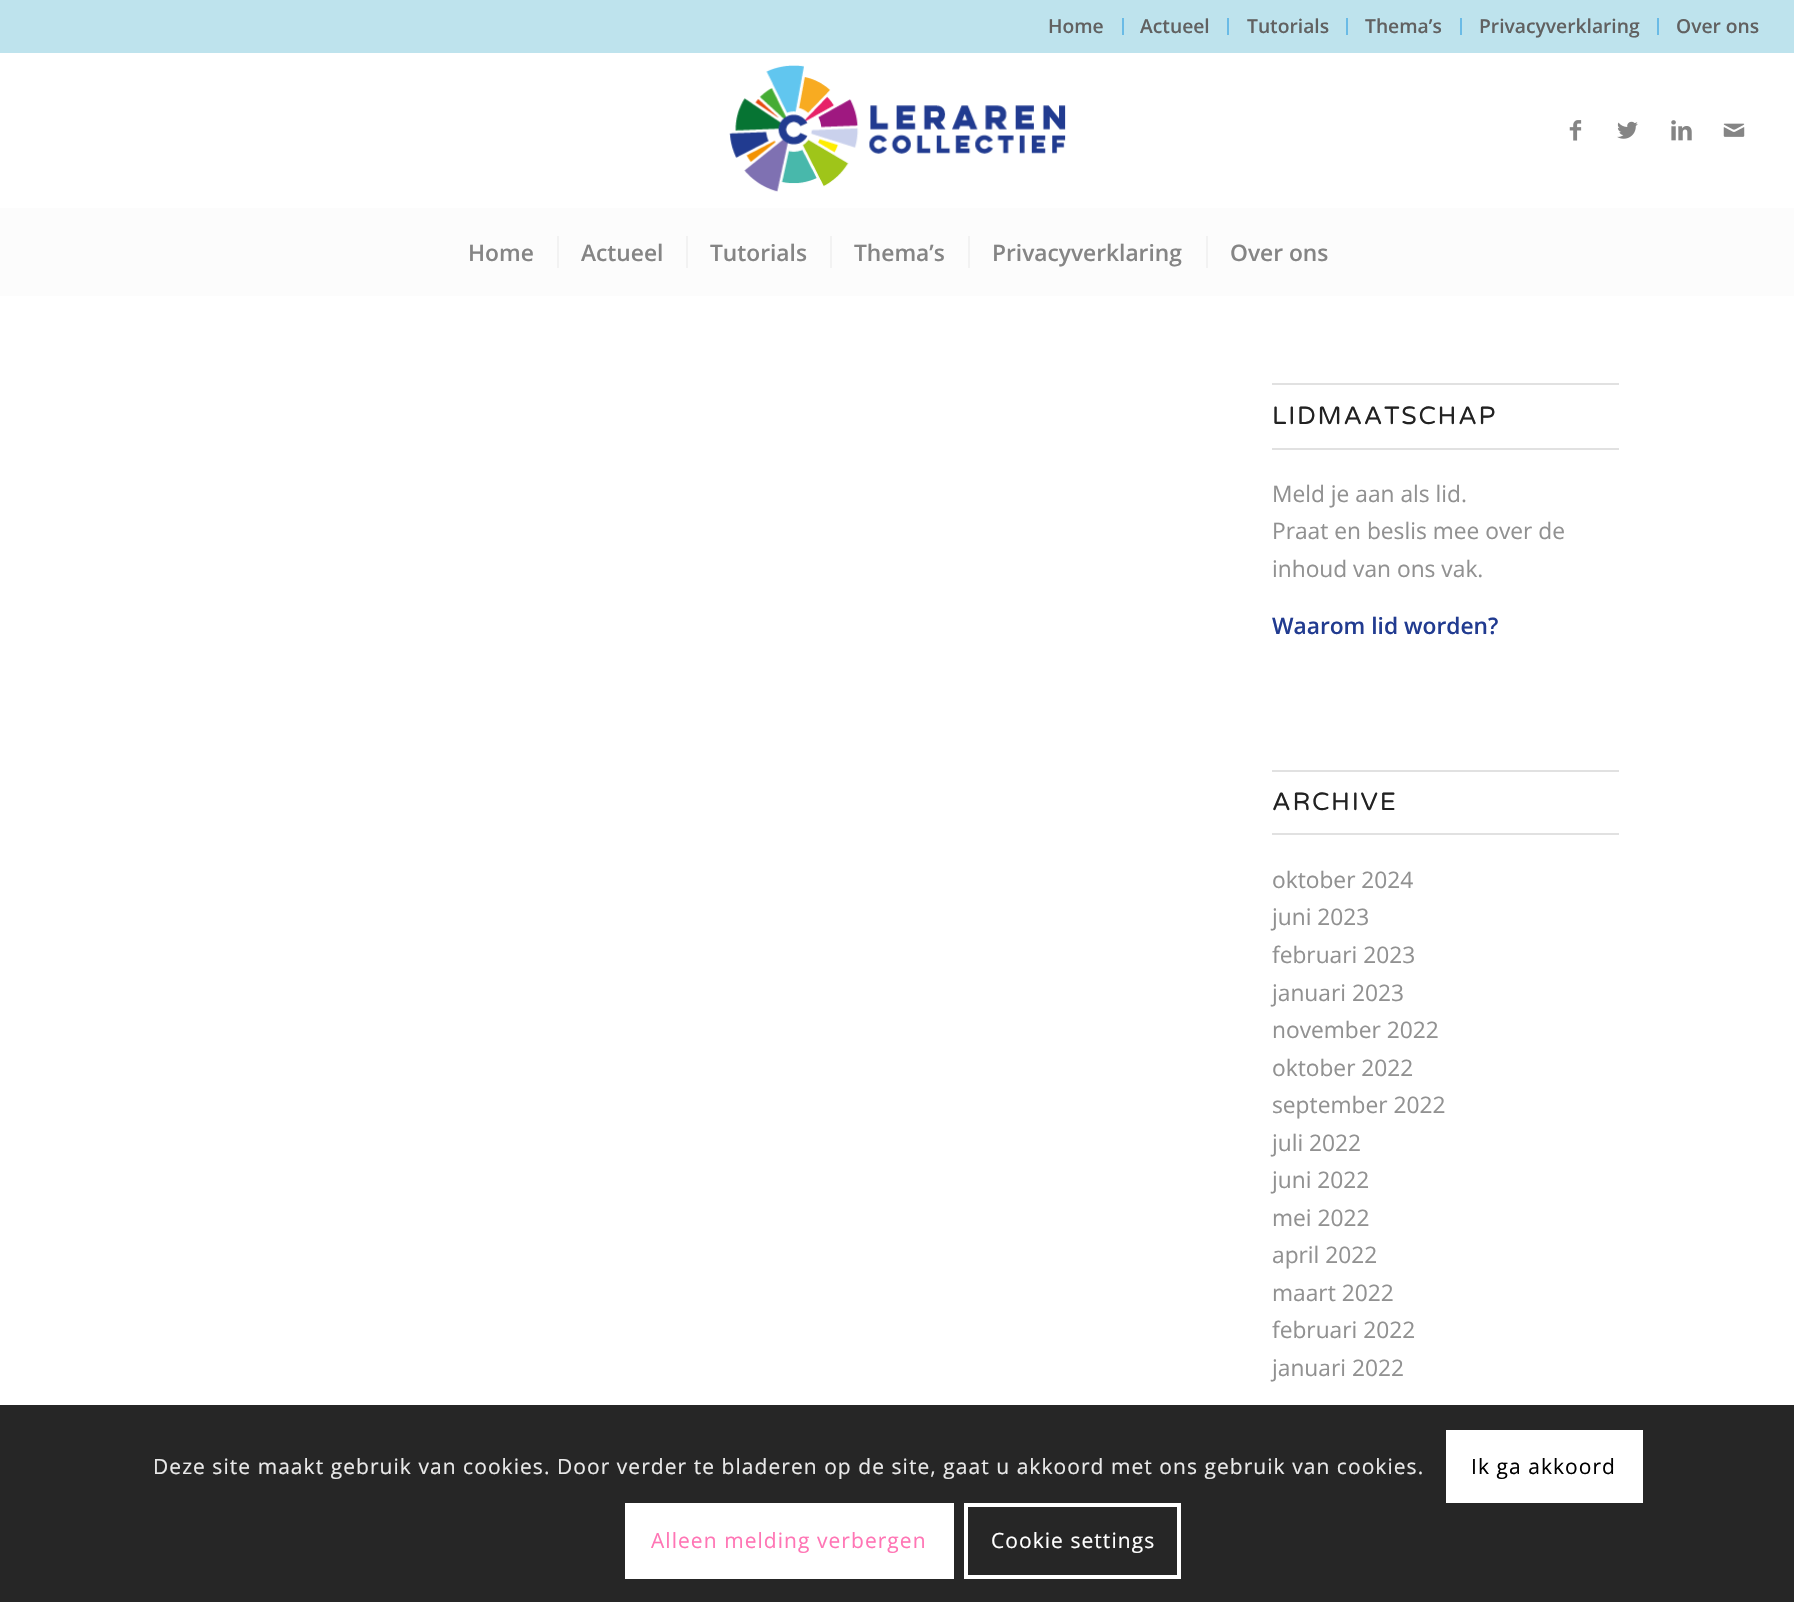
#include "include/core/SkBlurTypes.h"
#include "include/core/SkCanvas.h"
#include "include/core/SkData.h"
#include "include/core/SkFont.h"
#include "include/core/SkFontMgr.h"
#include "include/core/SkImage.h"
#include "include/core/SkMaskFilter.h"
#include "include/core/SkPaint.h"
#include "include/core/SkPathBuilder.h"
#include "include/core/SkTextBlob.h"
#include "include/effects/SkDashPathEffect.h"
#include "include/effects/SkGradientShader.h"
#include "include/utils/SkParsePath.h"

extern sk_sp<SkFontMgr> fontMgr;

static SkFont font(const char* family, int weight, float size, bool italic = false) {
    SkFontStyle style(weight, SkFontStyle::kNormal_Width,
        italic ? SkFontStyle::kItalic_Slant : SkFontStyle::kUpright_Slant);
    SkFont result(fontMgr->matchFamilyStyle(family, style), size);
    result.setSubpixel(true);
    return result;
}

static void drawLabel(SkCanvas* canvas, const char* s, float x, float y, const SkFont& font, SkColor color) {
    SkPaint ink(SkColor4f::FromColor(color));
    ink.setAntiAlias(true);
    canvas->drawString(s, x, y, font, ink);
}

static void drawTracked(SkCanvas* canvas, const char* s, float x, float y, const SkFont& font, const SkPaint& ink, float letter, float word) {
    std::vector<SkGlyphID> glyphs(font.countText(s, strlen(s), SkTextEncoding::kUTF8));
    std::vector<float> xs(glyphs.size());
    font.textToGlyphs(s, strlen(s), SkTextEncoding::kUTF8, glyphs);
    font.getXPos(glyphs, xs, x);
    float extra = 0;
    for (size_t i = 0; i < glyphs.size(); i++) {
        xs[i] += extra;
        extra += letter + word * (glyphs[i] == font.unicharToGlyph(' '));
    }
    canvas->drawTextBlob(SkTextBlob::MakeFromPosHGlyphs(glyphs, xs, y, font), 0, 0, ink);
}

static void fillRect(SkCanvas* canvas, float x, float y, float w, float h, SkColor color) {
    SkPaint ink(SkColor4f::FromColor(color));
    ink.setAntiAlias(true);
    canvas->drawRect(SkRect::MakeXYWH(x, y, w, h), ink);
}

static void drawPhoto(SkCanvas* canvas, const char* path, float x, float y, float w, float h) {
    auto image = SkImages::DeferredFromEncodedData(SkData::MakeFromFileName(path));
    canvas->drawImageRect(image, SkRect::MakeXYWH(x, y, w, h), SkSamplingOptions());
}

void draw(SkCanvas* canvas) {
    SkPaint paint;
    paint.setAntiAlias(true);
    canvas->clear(0xFFFFFFFF);
    fillRect(canvas, 0, 0, 1794, 53, 0xFFBEE3ED);
    fillRect(canvas, 1122, 18, 2, 17, 0xFF6ABBE6);
    SkFont font1 = font("Open Sans", 600, 19.25f);
    drawLabel(canvas, "Home", 1048, 33, font1, 0xFF616161);
    fillRect(canvas, 1227, 18, 2, 17, 0xFF6ABBE6);
    drawLabel(canvas, "Actueel", 1140, 33, font1, 0xFF616161);
    fillRect(canvas, 1346, 18, 2, 17, 0xFF6ABBE6);
    drawLabel(canvas, "Tutorials", 1247, 33, font1, 0xFF616161);
    fillRect(canvas, 1460, 18, 2, 17, 0xFF6ABBE6);
    drawLabel(canvas, "Thema’s", 1365, 33, font1, 0xFF616161);
    fillRect(canvas, 1657, 18, 2, 17, 0xFF6ABBE6);
    drawLabel(canvas, "Privacyverklaring", 1479, 33, font1, 0xFF616161);
    drawLabel(canvas, "Over ons", 1676, 33, font1, 0xFF616161);
    drawPhoto(canvas, "assets/img1.png", 729, 65, 337, 127);
    drawPhoto(canvas, "assets/img2.png", 1569, 120, 13, 21);
    drawPhoto(canvas, "assets/img3.png", 1617, 121, 21, 18);
    drawPhoto(canvas, "assets/img4.png", 1671, 120, 21, 21);
    drawPhoto(canvas, "assets/img5.png", 1723, 123, 22, 14);
    fillRect(canvas, 0, 208, 1794, 88, 0xFFFCFCFC);
    SkFont font2 = font("Open Sans", 600, 22.75f);
    drawLabel(canvas, "Home", 468, 261, font2, 0xFF858585);
    drawLabel(canvas, "Actueel", 581, 261, font2, 0xFF858585);
    fillRect(canvas, 557, 236, 2, 32, 0xFFF2F2F2);
    drawLabel(canvas, "Tutorials", 710, 261, font2, 0xFF858585);
    fillRect(canvas, 686, 236, 2, 32, 0xFFF2F2F2);
    drawLabel(canvas, "Thema’s", 854, 261, font2, 0xFF858585);
    fillRect(canvas, 830, 236, 2, 32, 0xFFF2F2F2);
    drawLabel(canvas, "Privacyverklaring", 992, 261, font2, 0xFF858585);
    fillRect(canvas, 968, 236, 2, 32, 0xFFF2F2F2);
    drawLabel(canvas, "Over ons", 1230, 261, font2, 0xFF858585);
    fillRect(canvas, 1206, 236, 2, 32, 0xFFF2F2F2);
    fillRect(canvas, 1272, 383, 347, 2, 0xFFE1E1E1);
    fillRect(canvas, 1272, 448, 347, 2, 0xFFE1E1E1);
    SkFont font3 = font("Varela Round", 400, 25);
    paint.setColor(0xFF222222);
    drawTracked(canvas, "LIDMAATSCHAP", 1272, 424, font3, paint, 1.75f, 0);
    SkFont font4 = font("Open Sans", 400, 22.75f);
    drawLabel(canvas, "Meld je aan als lid.", 1272, 502, font4, 0xFF919191);
    drawLabel(canvas, "Praat en beslis mee over de", 1272, 539, font4, 0xFF919191);
    drawLabel(canvas, "inhoud van ons vak.", 1272, 577, font4, 0xFF919191);
    drawLabel(canvas, "Waarom lid worden?", 1272, 634, font2, 0xFF213B90);
    fillRect(canvas, 1272, 770, 347, 2, 0xFFE1E1E1);
    fillRect(canvas, 1272, 833, 347, 2, 0xFFE1E1E1);
    drawTracked(canvas, "ARCHIVE", 1272, 810, font3, paint, 1.75f, 0);
    drawLabel(canvas, "oktober 2024", 1272, 888, font4, 0xFF919191);
    drawLabel(canvas, "juni 2023", 1272, 925, font4, 0xFF919191);
    drawLabel(canvas, "februari 2023", 1272, 963, font4, 0xFF919191);
    drawLabel(canvas, "januari 2023", 1272, 1001, font4, 0xFF919191);
    drawLabel(canvas, "november 2022", 1272, 1038, font4, 0xFF919191);
    drawLabel(canvas, "oktober 2022", 1272, 1076, font4, 0xFF919191);
    drawLabel(canvas, "september 2022", 1272, 1113, font4, 0xFF919191);
    drawLabel(canvas, "juli 2022", 1272, 1151, font4, 0xFF919191);
    drawLabel(canvas, "juni 2022", 1272, 1188, font4, 0xFF919191);
    drawLabel(canvas, "mei 2022", 1272, 1226, font4, 0xFF919191);
    drawLabel(canvas, "april 2022", 1272, 1263, font4, 0xFF919191);
    drawLabel(canvas, "maart 2022", 1272, 1301, font4, 0xFF919191);
    drawLabel(canvas, "februari 2022", 1272, 1338, font4, 0xFF919191);
    drawLabel(canvas, "januari 2022", 1272, 1376, font4, 0xFF919191);
    fillRect(canvas, 0, 1405, 1794, 197, 0xD9000000);
    SkFont font5 = font("Open Sans", 400, 21);
    paint.setColor(0xFFE9E9E9);
    drawTracked(canvas, "Deze site maakt gebruik van cookies. Door verder te bladeren op de site, gaat u akkoord met ons gebruik van cookies.", 153, 1474, font5, paint, 1.05f, 0);
    fillRect(canvas, 1446, 1430, 197, 73, 0xFFFFFFFF);
    paint.setColor(0xFF000000);
    drawTracked(canvas, "Ik ga akkoord", 1471, 1474, font5, paint, 1.05f, 0);
    fillRect(canvas, 625, 1503, 329, 76, 0xFFFFFFFF);
    paint.setColor(0xFFFF75B5);
    drawTracked(canvas, "Alleen melding verbergen", 651, 1548, font5, paint, 1.05f, 0);
    paint.setStroke(true);
    paint.setStrokeWidth(4);
    paint.setColor(0xFFFFFFFF);
    canvas->drawRect(SkRect::MakeXYWH(966, 1505, 213, 72), paint);
    paint.setStroke(false);
    drawTracked(canvas, "Cookie settings", 991, 1548, font5, paint, 1.05f, 0);
}
